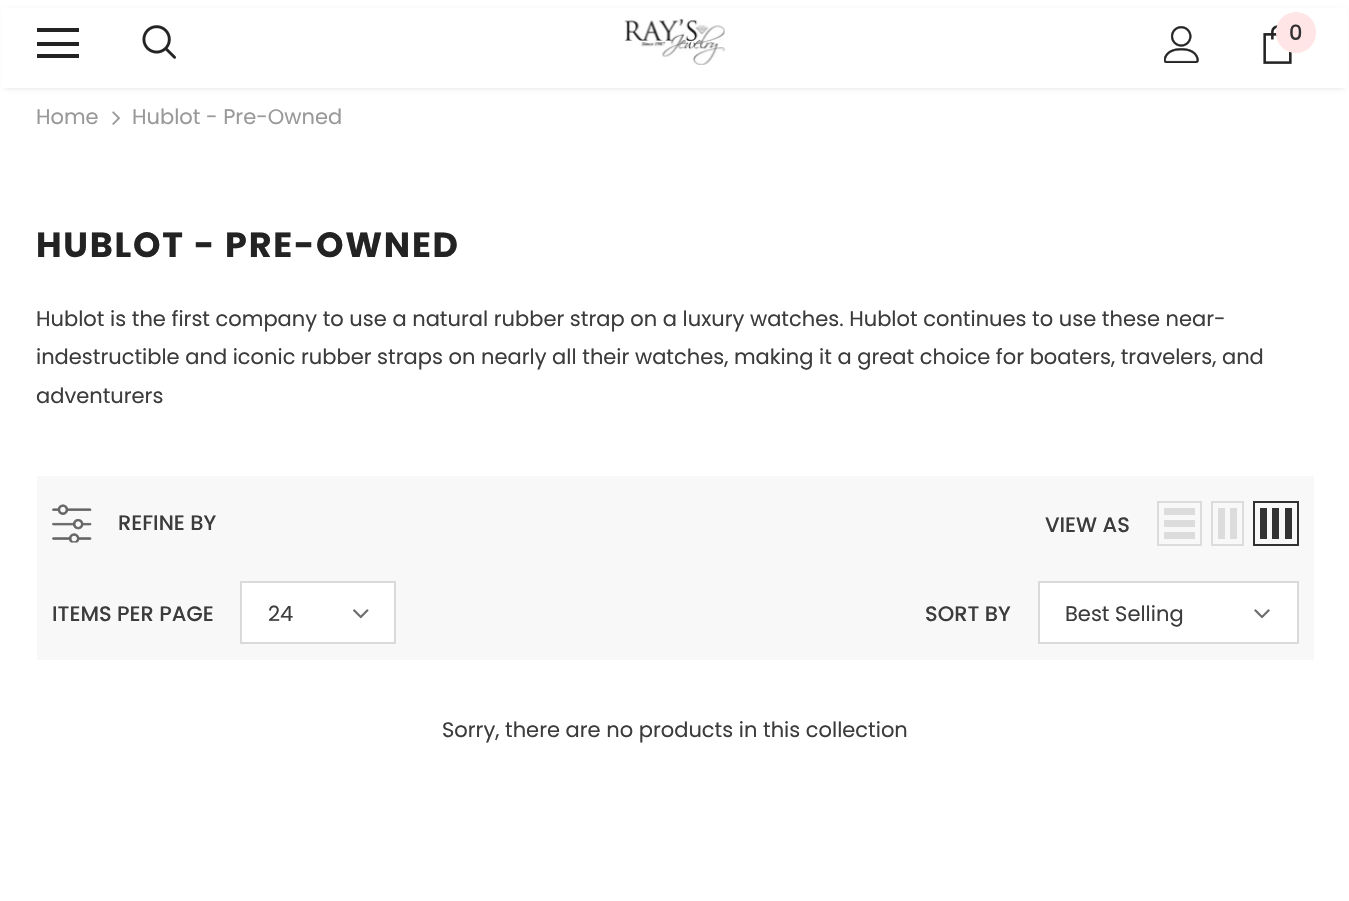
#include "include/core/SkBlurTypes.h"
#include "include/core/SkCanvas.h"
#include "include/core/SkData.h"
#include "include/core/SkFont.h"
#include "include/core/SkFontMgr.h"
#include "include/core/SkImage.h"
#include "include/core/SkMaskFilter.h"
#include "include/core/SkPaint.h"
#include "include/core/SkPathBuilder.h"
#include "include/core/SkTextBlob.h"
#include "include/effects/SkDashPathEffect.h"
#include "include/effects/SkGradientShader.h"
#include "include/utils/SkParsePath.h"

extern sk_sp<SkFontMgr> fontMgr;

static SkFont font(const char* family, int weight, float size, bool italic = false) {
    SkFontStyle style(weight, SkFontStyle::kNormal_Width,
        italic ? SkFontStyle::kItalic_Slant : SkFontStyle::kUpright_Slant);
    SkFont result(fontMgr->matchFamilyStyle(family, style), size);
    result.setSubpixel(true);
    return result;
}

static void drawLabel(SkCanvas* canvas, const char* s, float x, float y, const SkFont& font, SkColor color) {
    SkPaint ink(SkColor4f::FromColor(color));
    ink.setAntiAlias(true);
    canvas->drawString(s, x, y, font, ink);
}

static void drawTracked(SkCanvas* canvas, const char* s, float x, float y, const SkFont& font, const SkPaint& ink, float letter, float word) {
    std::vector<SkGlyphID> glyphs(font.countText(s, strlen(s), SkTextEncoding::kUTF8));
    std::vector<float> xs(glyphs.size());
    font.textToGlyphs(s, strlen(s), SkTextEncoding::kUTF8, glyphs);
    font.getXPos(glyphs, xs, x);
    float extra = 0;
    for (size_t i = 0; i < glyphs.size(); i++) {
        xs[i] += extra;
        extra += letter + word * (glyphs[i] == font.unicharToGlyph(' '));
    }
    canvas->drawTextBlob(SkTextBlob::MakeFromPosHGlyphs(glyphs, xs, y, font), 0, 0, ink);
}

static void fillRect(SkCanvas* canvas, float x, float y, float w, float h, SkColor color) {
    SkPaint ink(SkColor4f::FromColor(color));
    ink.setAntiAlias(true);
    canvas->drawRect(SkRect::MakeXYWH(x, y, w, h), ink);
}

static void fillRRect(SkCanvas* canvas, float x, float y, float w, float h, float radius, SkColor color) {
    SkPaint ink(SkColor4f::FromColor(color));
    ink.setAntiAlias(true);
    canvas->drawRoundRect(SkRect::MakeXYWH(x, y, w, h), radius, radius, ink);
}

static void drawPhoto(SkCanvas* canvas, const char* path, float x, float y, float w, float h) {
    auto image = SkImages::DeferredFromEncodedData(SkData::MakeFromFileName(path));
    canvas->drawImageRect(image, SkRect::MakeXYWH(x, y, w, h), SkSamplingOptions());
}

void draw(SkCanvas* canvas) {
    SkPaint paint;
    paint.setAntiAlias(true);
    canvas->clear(0xFFFFFFFF);
    paint.setColor(0x1F000000);
    paint.setMaskFilter(SkMaskFilter::MakeBlur(kNormal_SkBlurStyle, 2.5f));
    canvas->drawRect(SkRect::MakeXYWH(5, 11, 1339, 77), paint);
    paint.setMaskFilter(nullptr);
    fillRect(canvas, 2, 8, 1345, 80, 0xFFFFFFFF);
    fillRect(canvas, 37, 28, 42, 4, 0xFF232323);
    fillRect(canvas, 37, 42, 42, 4, 0xFF232323);
    fillRect(canvas, 37, 54, 42, 4, 0xFF232323);
    drawPhoto(canvas, "assets/img1.png", 142, 25, 34, 34);
    drawPhoto(canvas, "assets/img2.png", 624, 19, 101, 46);
    drawPhoto(canvas, "assets/img3.png", 1164, 26, 35, 37);
    drawPhoto(canvas, "assets/img4.png", 1263, 25, 29, 39);
    fillRRect(canvas, 1276, 12, 40, 41, 20, 0xFFFFE5E5);
    SkFont font1 = font("Poppins", 500, 21);
    drawLabel(canvas, "0", 1289, 40, font1, 0xFF323232);
    SkFont font2 = font("Poppins", 400, 21);
    drawLabel(canvas, "Home", 36, 124, font2, 0xFF999999);
    drawPhoto(canvas, "assets/img5.png", 112, 111, 8, 14);
    drawLabel(canvas, "Hublot - Pre-Owned", 132, 124, font2, 0xFF999999);
    SkFont font3 = font("Poppins", 700, 35);
    paint.setColor(0xFF232323);
    drawTracked(canvas, "HUBLOT - PRE-OWNED", 36, 257, font3, paint, 1.75f, 0);
    drawLabel(canvas, "Hublot is the first company to use a natural rubber strap on a luxury watches. Hublot continues to use these near-", 36, 326, font2, 0xFF3C3C3C);
    drawLabel(canvas, "indestructible and iconic rubber straps on nearly all their watches, making it a great choice for boaters, travelers, and", 36, 364, font2, 0xFF3C3C3C);
    drawLabel(canvas, "adventurers", 36, 403, font2, 0xFF3C3C3C);
    fillRect(canvas, 37, 476, 1277, 184, 0xFFF8F8F8);
    drawPhoto(canvas, "assets/img6.png", 52, 504, 40, 39);
    drawLabel(canvas, "REFINE BY", 118, 530, font1, 0xFF3C3C3C);
    drawLabel(canvas, "VIEW AS", 1045, 532, font1, 0xFF3C3C3C);
    paint.setStroke(true);
    paint.setStrokeWidth(2);
    paint.setColor(0xFFDCDCDC);
    canvas->drawRect(SkRect::MakeXYWH(1158, 502, 43, 43), paint);
    fillRect(canvas, 1164, 532, 31, 7, 0xFFDCDCDC);
    fillRect(canvas, 1164, 520, 31, 7, 0xFFDCDCDC);
    fillRect(canvas, 1164, 508, 31, 7, 0xFFDCDCDC);
    canvas->drawRect(SkRect::MakeXYWH(1212, 502, 31, 43), paint);
    fillRect(canvas, 1230, 508, 7, 31, 0xFFDCDCDC);
    fillRect(canvas, 1218, 508, 7, 31, 0xFFDCDCDC);
    paint.setColor(0xFF323232);
    canvas->drawRect(SkRect::MakeXYWH(1254, 502, 44, 43), paint);
    fillRect(canvas, 1285, 508, 7, 31, 0xFF323232);
    fillRect(canvas, 1272, 508, 7, 31, 0xFF323232);
    fillRect(canvas, 1260, 508, 7, 31, 0xFF323232);
    drawLabel(canvas, "ITEMS PER PAGE", 52, 621, font1, 0xFF3C3C3C);
    paint.setStroke(false);
    paint.setColor(0xFFFFFFFF);
    canvas->drawRect(SkRect::MakeXYWH(241, 582, 154, 61), paint);
    paint.setStroke(true);
    paint.setColor(0xFFDADADA);
    canvas->drawRect(SkRect::MakeXYWH(241, 582, 154, 61), paint);
    drawLabel(canvas, "24", 268, 621, font2, 0xFF3C3C3C);
    drawPhoto(canvas, "assets/img7.png", 353, 609, 16, 10);
    drawLabel(canvas, "SORT BY", 925, 621, font1, 0xFF3C3C3C);
    paint.setStroke(false);
    paint.setColor(0xFFFFFFFF);
    canvas->drawRect(SkRect::MakeXYWH(1039, 582, 259, 61), paint);
    paint.setStroke(true);
    paint.setColor(0xFFDADADA);
    canvas->drawRect(SkRect::MakeXYWH(1039, 582, 259, 61), paint);
    drawLabel(canvas, "Best Selling", 1065, 621, font2, 0xFF3C3C3C);
    drawPhoto(canvas, "assets/img8.png", 1254, 609, 16, 10);
    drawLabel(canvas, "Sorry, there are no products in this collection", 442, 737, font2, 0xFF3C3C3C);
}
